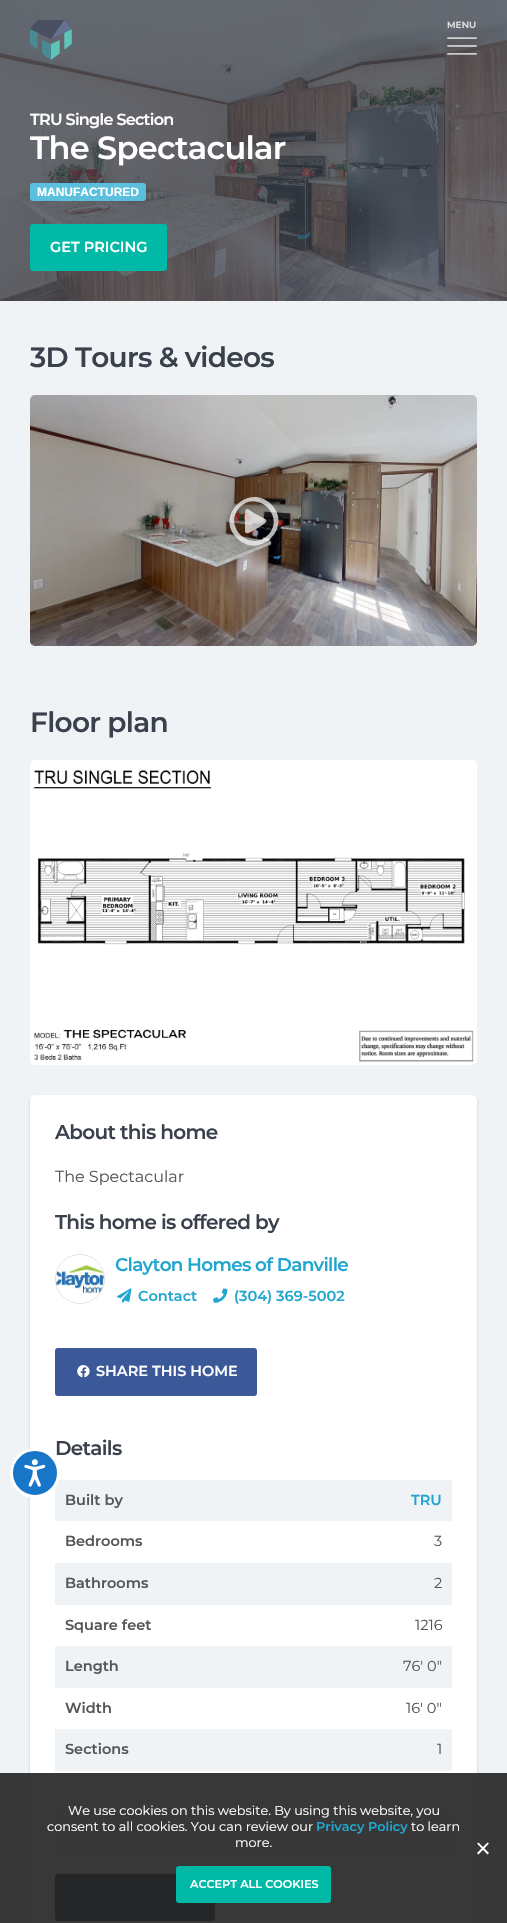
#include "include/core/SkBlurTypes.h"
#include "include/core/SkCanvas.h"
#include "include/core/SkData.h"
#include "include/core/SkFont.h"
#include "include/core/SkFontMgr.h"
#include "include/core/SkImage.h"
#include "include/core/SkMaskFilter.h"
#include "include/core/SkPaint.h"
#include "include/core/SkPathBuilder.h"
#include "include/core/SkTextBlob.h"
#include "include/effects/SkDashPathEffect.h"
#include "include/effects/SkGradientShader.h"
#include "include/utils/SkParsePath.h"

extern sk_sp<SkFontMgr> fontMgr;

static SkFont font(const char* family, int weight, float size, bool italic = false) {
    SkFontStyle style(weight, SkFontStyle::kNormal_Width,
        italic ? SkFontStyle::kItalic_Slant : SkFontStyle::kUpright_Slant);
    SkFont result(fontMgr->matchFamilyStyle(family, style), size);
    result.setSubpixel(true);
    return result;
}

static void drawLabel(SkCanvas* canvas, const char* s, float x, float y, const SkFont& font, SkColor color) {
    SkPaint ink(SkColor4f::FromColor(color));
    ink.setAntiAlias(true);
    canvas->drawString(s, x, y, font, ink);
}

static void drawTracked(SkCanvas* canvas, const char* s, float x, float y, const SkFont& font, const SkPaint& ink, float letter, float word) {
    std::vector<SkGlyphID> glyphs(font.countText(s, strlen(s), SkTextEncoding::kUTF8));
    std::vector<float> xs(glyphs.size());
    font.textToGlyphs(s, strlen(s), SkTextEncoding::kUTF8, glyphs);
    font.getXPos(glyphs, xs, x);
    float extra = 0;
    for (size_t i = 0; i < glyphs.size(); i++) {
        xs[i] += extra;
        extra += letter + word * (glyphs[i] == font.unicharToGlyph(' '));
    }
    canvas->drawTextBlob(SkTextBlob::MakeFromPosHGlyphs(glyphs, xs, y, font), 0, 0, ink);
}

static void fillRect(SkCanvas* canvas, float x, float y, float w, float h, SkColor color) {
    SkPaint ink(SkColor4f::FromColor(color));
    ink.setAntiAlias(true);
    canvas->drawRect(SkRect::MakeXYWH(x, y, w, h), ink);
}

static void fillRRect(SkCanvas* canvas, float x, float y, float w, float h, float radius, SkColor color) {
    SkPaint ink(SkColor4f::FromColor(color));
    ink.setAntiAlias(true);
    canvas->drawRoundRect(SkRect::MakeXYWH(x, y, w, h), radius, radius, ink);
}

static void drawPhoto(SkCanvas* canvas, const char* path, float x, float y, float w, float h) {
    auto image = SkImages::DeferredFromEncodedData(SkData::MakeFromFileName(path));
    canvas->drawImageRect(image, SkRect::MakeXYWH(x, y, w, h), SkSamplingOptions());
}

static SkPath parsePath(const char* data, bool evenOdd = false) {
    SkPath result = *SkParsePath::FromSVGString(data);
    if (evenOdd) result.setFillType(SkPathFillType::kEvenOdd);
    return result;
}

void draw(SkCanvas* canvas) {
    SkPaint paint;
    paint.setAntiAlias(true);
    canvas->clear(0xFFF0F3F6);
    drawPhoto(canvas, "assets/img3.png", 0, 0, 507, 301);
    drawPhoto(canvas, "assets/img1.png", 30, 20, 42, 40);
    SkFont font1 = font("Montserrat", 600, 9);
    drawLabel(canvas, "MENU", 447, 28, font1, 0xFFE0E1E2);
    drawPhoto(canvas, "assets/img2.png", 447, 37, 30, 18);
    SkFont font2 = font("Montserrat", 600, 16);
    paint.setColor(0xFFFFFFFF);
    drawTracked(canvas, "TRU Single Section", 30, 125, font2, paint, -0.7f, 0);
    SkFont font3 = font("Montserrat", 600, 32);
    drawTracked(canvas, "The Spectacular", 30, 159, font3, paint, -0.7f, 0);
    fillRRect(canvas, 30, 183, 116, 18, 3, 0xFF5BC0DE);
    SkFont font4 = font("Liberation Sans", 700, 12);
    drawLabel(canvas, "MANUFACTURED", 37, 196, font4, 0xFFFFFFFF);
    fillRRect(canvas, 30, 224, 137, 47, 3, 0xFF00BAA7);
    SkFont font5 = font("Montserrat", 600, 14.5f);
    drawLabel(canvas, "GET PRICING", 50, 252, font5, 0xFFFFFFFF);
    SkFont font6 = font("Montserrat", 600, 28);
    paint.setColor(0xFF3A414C);
    drawTracked(canvas, "3D Tours & videos", 30, 367, font6, paint, -0.7f, 0);
    drawPhoto(canvas, "assets/img4.png", 30, 395, 447, 251);
    paint.setColor(0xB3FFFFFF);
    canvas->drawPath(parsePath("M265 519C270 522 260 526 260 527C257 528 248 535 246 533L245 532V514C245 506 248 509 254 513ZM271 504C294 527 259 561 237 538C214 516 249 482 271 504ZM240 507C222 526 250 553 268 535C286 517 258 489 240 507Z"), paint);
    paint.setColor(0xFF3A414C);
    drawTracked(canvas, "Floor plan", 30, 732, font6, paint, -0.7f, 0);
    drawPhoto(canvas, "assets/img5.png", 30, 760, 447, 305);
    paint.setColor(0x1A22272D);
    paint.setMaskFilter(SkMaskFilter::MakeBlur(kNormal_SkBlurStyle, 1));
    canvas->drawRoundRect(SkRect::MakeXYWH(29, 1096, 449, 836), 6, 6, paint);
    paint.setMaskFilter(nullptr);
    fillRRect(canvas, 30, 1095, 447, 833, 5, 0xFFFFFFFF);
    SkFont font7 = font("Montserrat", 600, 20);
    paint.setColor(0xFF3A414C);
    drawTracked(canvas, "About this home", 55, 1139, font7, paint, -0.7f, 0);
    SkFont font8 = font("Montserrat", 400, 16);
    drawLabel(canvas, "The Spectacular", 55, 1182, font8, 0xFF565656);
    drawTracked(canvas, "This home is offered by", 55, 1229, font7, paint, -0.7f, 0);
    paint.setStroke(true);
    paint.setStrokeWidth(1);
    paint.setColor(0xFFDEE2E6);
    canvas->drawCircle(80, 1279, 24.5f, paint);
    drawPhoto(canvas, "assets/img6.png", 56, 1255, 48, 48);
    SkFont font9 = font("Montserrat", 600, 18.4f);
    paint.setStroke(false);
    paint.setColor(0xFF21A6CE);
    drawTracked(canvas, "Clayton Homes of Danville", 115, 1271, font9, paint, -0.7f, 0);
    drawPhoto(canvas, "assets/img7.png", 117, 1288, 15, 15);
    drawLabel(canvas, "Contact", 138, 1301, font5, 0xFF21A6CE);
    drawPhoto(canvas, "assets/img8.png", 213, 1288, 15, 15);
    drawLabel(canvas, "(304) 369-5002", 234, 1301, font5, 0xFF21A6CE);
    fillRRect(canvas, 55, 1348, 202, 48, 3, 0xFF3B5998);
    drawPhoto(canvas, "assets/img9.png", 77, 1365, 13, 13);
    drawLabel(canvas, "SHARE THIS HOME", 96, 1376, font5, 0xFFFFFFFF);
    paint.setColor(0xFF3A414C);
    drawTracked(canvas, "Details", 55, 1455, font7, paint, -0.7f, 0);
    fillRect(canvas, 55, 1480, 397, 41, 0xFFF0F3F6);
    drawLabel(canvas, "Built by", 65, 1505, font5, 0xFF565656);
    drawLabel(canvas, "TRU", 411, 1505, font5, 0xFF21A6CE);
    drawLabel(canvas, "Bedrooms", 65, 1546, font5, 0xFF565656);
    SkFont font10 = font("Montserrat", 400, 14.5f);
    drawLabel(canvas, "3", 434, 1546, font10, 0xFF565656);
    fillRect(canvas, 55, 1563, 397, 42, 0xFFF0F3F6);
    drawLabel(canvas, "Bathrooms", 65, 1588, font5, 0xFF565656);
    drawLabel(canvas, "2", 434, 1588, font10, 0xFF565656);
    drawLabel(canvas, "Square feet", 65, 1630, font5, 0xFF565656);
    drawLabel(canvas, "1216", 415, 1630, font10, 0xFF565656);
    fillRect(canvas, 55, 1646, 397, 42, 0xFFF0F3F6);
    drawLabel(canvas, "Length", 65, 1671, font5, 0xFF565656);
    drawLabel(canvas, "76' 0\"", 403, 1671, font10, 0xFF565656);
    drawLabel(canvas, "Width", 65, 1713, font5, 0xFF565656);
    drawLabel(canvas, "16' 0\"", 406, 1713, font10, 0xFF565656);
    fillRect(canvas, 55, 1729, 397, 42, 0xFFF0F3F6);
    drawLabel(canvas, "Sections", 65, 1754, font5, 0xFF565656);
    drawLabel(canvas, "1", 437, 1754, font10, 0xFF565656);
    fillRect(canvas, 55, 1813, 397, 41, 0xFFF0F3F6);
    fillRRect(canvas, 55, 1874, 160, 47, 3, 0xFF3A414C);
    paint.setColor(0xFF1876C9);
    canvas->drawCircle(35, 1473, 23.5f, paint);
    paint.setStroke(true);
    paint.setStrokeWidth(3);
    paint.setColor(0xFFFFFFFF);
    canvas->drawCircle(35, 1473, 23.5f, paint);
    drawPhoto(canvas, "assets/img10.png", 24, 1459, 22, 28);
    fillRect(canvas, 0, 1773, 507, 150, 0xE6222222);
    SkFont font11 = font("Montserrat", 400, 12.8f);
    drawLabel(canvas, "We use cookies on this website. By using this website, you", 68, 1815, font11, 0xFFFFFFFF);
    drawLabel(canvas, "consent to all cookies. You can review our", 47, 1831, font11, 0xFFFFFFFF);
    SkFont font12 = font("Montserrat", 600, 12.8f);
    drawLabel(canvas, "Privacy Policy", 316, 1831, font12, 0xFF21A6CE);
    drawLabel(canvas, "to learn", 411, 1831, font11, 0xFFFFFFFF);
    drawLabel(canvas, "more.", 235, 1847, font11, 0xFFFFFFFF);
    paint.setStroke(false);
    canvas->drawPath(parsePath("M487.5 1842.5L489 1843.5L478.5 1854.5L477 1853Z"), paint);
    canvas->drawPath(parsePath("M477 1843.5L478.5 1842.5L489 1853L487.5 1854.5Z"), paint);
    fillRRect(canvas, 176, 1866, 155, 37, 3, 0xFF00BAA7);
    SkFont font13 = font("Montserrat", 600, 11.25f);
    drawLabel(canvas, "ACCEPT ALL COOKIES", 190, 1888, font13, 0xFFFFFFFF);
}
